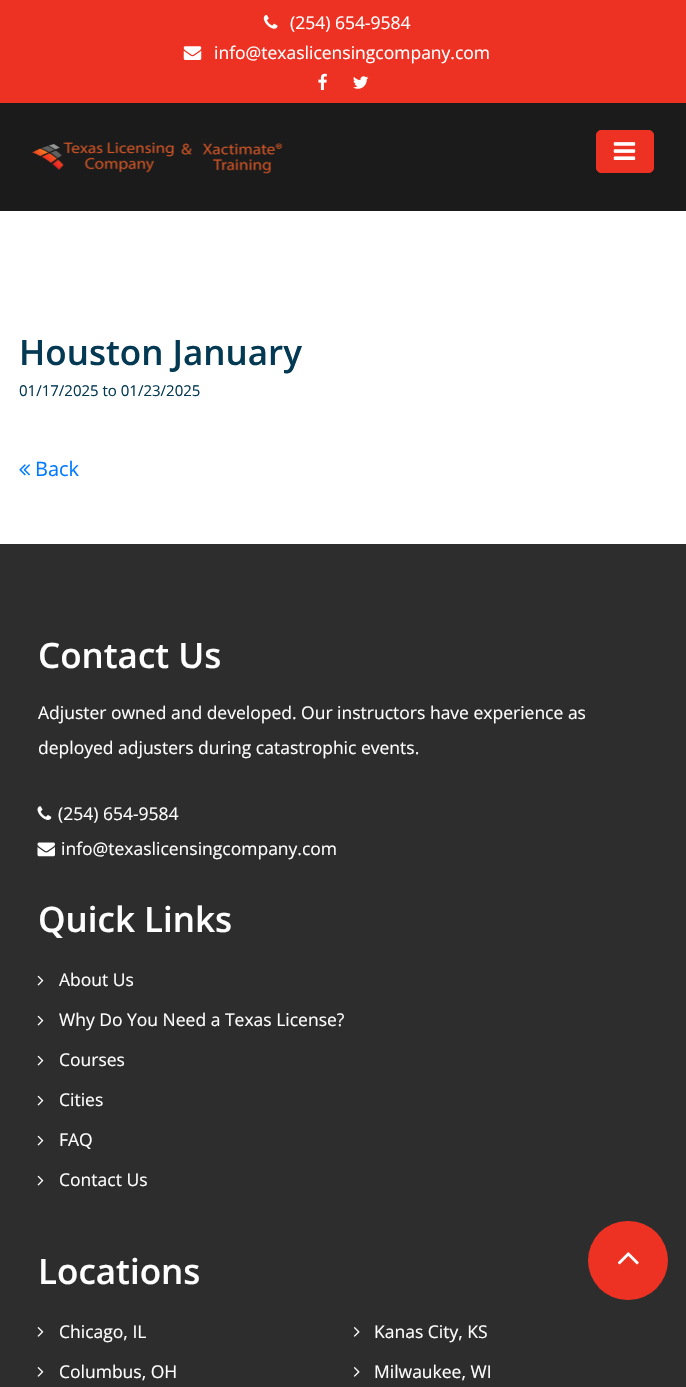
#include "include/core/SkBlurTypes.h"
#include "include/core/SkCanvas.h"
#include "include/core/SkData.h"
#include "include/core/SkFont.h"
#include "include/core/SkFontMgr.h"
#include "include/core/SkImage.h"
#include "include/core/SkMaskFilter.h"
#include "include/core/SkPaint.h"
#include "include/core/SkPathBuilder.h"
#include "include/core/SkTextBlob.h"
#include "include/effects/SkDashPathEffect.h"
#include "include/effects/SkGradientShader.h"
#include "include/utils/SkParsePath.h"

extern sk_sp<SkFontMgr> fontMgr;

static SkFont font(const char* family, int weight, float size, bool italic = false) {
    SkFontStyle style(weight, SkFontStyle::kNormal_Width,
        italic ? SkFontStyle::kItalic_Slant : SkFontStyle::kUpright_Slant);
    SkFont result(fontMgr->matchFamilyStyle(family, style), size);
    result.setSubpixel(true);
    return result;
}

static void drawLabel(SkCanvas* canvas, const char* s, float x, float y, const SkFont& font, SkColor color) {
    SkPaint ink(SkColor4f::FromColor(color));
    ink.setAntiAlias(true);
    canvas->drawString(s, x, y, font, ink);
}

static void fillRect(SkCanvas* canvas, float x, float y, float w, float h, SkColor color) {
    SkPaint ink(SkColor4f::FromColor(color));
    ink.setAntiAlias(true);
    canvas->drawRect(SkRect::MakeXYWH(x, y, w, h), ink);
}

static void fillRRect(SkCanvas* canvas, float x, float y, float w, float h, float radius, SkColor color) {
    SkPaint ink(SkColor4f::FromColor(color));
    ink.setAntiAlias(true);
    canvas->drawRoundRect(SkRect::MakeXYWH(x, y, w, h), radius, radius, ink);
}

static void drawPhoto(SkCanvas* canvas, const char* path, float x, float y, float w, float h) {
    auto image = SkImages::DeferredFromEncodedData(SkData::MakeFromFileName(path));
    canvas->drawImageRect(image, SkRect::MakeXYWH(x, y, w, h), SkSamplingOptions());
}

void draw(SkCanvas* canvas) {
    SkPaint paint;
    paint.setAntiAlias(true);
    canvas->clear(0xFFFFFFFF);
    fillRect(canvas, 0, 103, 686, 108, 0xFF1B1B1B);
    fillRect(canvas, 0, 0, 686, 103, 0xFFED3223);
    drawPhoto(canvas, "assets/img1.png", 263, 15, 15, 14);
    SkFont font1 = font("Open Sans", 400, 17.5f);
    drawLabel(canvas, "(254) 654-9584", 290, 29, font1, 0xFFFFFFFF);
    drawPhoto(canvas, "assets/img2.png", 183, 46, 19, 14);
    drawLabel(canvas, "info@texaslicensingcompany.com", 214, 59, font1, 0xFFFFFFFF);
    drawPhoto(canvas, "assets/img3.png", 318, 73, 9, 17);
    drawPhoto(canvas, "assets/img4.png", 353, 76, 16, 13);
    drawPhoto(canvas, "assets/img5.png", 32, 142, 251, 32);
    paint.setColor(0xFFED3223);
    canvas->drawRoundRect(SkRect::MakeXYWH(596.5f, 130.5f, 57, 42), 4.5f, 4.5f, paint);
    paint.setStroke(true);
    paint.setStrokeWidth(1);
    canvas->drawRoundRect(SkRect::MakeXYWH(596.5f, 130.5f, 57, 42), 4.5f, 4.5f, paint);
    drawPhoto(canvas, "assets/img6.png", 613, 142, 23, 18);
    SkFont font2 = font("Open Sans", 600, 35);
    drawLabel(canvas, "Houston January", 19, 365, font2, 0xFF033952);
    SkFont font3 = font("Open Sans", 400, 15);
    drawLabel(canvas, "01/17/2025 to 01/23/2025", 19, 396, font3, 0xFF033952);
    drawPhoto(canvas, "assets/img7.png", 19, 464, 11, 12);
    SkFont font4 = font("Open Sans", 400, 20);
    drawLabel(canvas, "Back", 35, 476, font4, 0xFF007BFF);
    fillRect(canvas, 0, 544, 686, 843, 0xFF2D2D2D);
    drawLabel(canvas, "Contact Us", 38, 668, font2, 0xFFFFFFFF);
    drawLabel(canvas, "Adjuster owned and developed. Our instructors have experience as", 38, 719, font1, 0xFFFFFFFF);
    drawLabel(canvas, "deployed adjusters during catastrophic events.", 38, 754, font1, 0xFFFFFFFF);
    drawPhoto(canvas, "assets/img8.png", 37, 806, 15, 14);
    drawLabel(canvas, "(254) 654-9584", 58, 820, font1, 0xFFFFFFFF);
    drawPhoto(canvas, "assets/img9.png", 37, 842, 18, 15);
    drawLabel(canvas, "info@texaslicensingcompany.com", 61, 855, font1, 0xFFFFFFFF);
    drawLabel(canvas, "Quick Links", 38, 932, font2, 0xFFFFFFFF);
    drawPhoto(canvas, "assets/img10.png", 37, 975, 7, 11);
    drawLabel(canvas, "About Us", 59, 986, font1, 0xFFFFFFFF);
    drawPhoto(canvas, "assets/img10.png", 37, 1015, 7, 11);
    drawLabel(canvas, "Why Do You Need a Texas License?", 59, 1026, font1, 0xFFFFFFFF);
    drawPhoto(canvas, "assets/img10.png", 37, 1055, 7, 11);
    drawLabel(canvas, "Courses", 59, 1066, font1, 0xFFFFFFFF);
    drawPhoto(canvas, "assets/img10.png", 37, 1095, 7, 11);
    drawLabel(canvas, "Cities", 59, 1106, font1, 0xFFFFFFFF);
    drawPhoto(canvas, "assets/img10.png", 37, 1135, 7, 11);
    drawLabel(canvas, "FAQ", 59, 1146, font1, 0xFFFFFFFF);
    drawPhoto(canvas, "assets/img10.png", 37, 1175, 7, 11);
    drawLabel(canvas, "Contact Us", 59, 1186, font1, 0xFFFFFFFF);
    drawLabel(canvas, "Locations", 38, 1284, font2, 0xFFFFFFFF);
    drawPhoto(canvas, "assets/img11.png", 37, 1327, 7, 10);
    drawLabel(canvas, "Chicago, IL", 59, 1338, font1, 0xFFFFFFFF);
    drawPhoto(canvas, "assets/img12.png", 353, 1327, 7, 10);
    drawLabel(canvas, "Kanas City, KS", 374, 1338, font1, 0xFFFFFFFF);
    drawPhoto(canvas, "assets/img11.png", 37, 1367, 7, 10);
    drawLabel(canvas, "Columbus, OH", 59, 1378, font1, 0xFFFFFFFF);
    drawPhoto(canvas, "assets/img12.png", 353, 1367, 7, 10);
    drawLabel(canvas, "Milwaukee, WI", 374, 1378, font1, 0xFFFFFFFF);
    fillRRect(canvas, 588, 1221, 80, 79, 39.5f, 0xFFED3223);
    drawPhoto(canvas, "assets/img13.png", 617, 1252, 22, 13);
}
